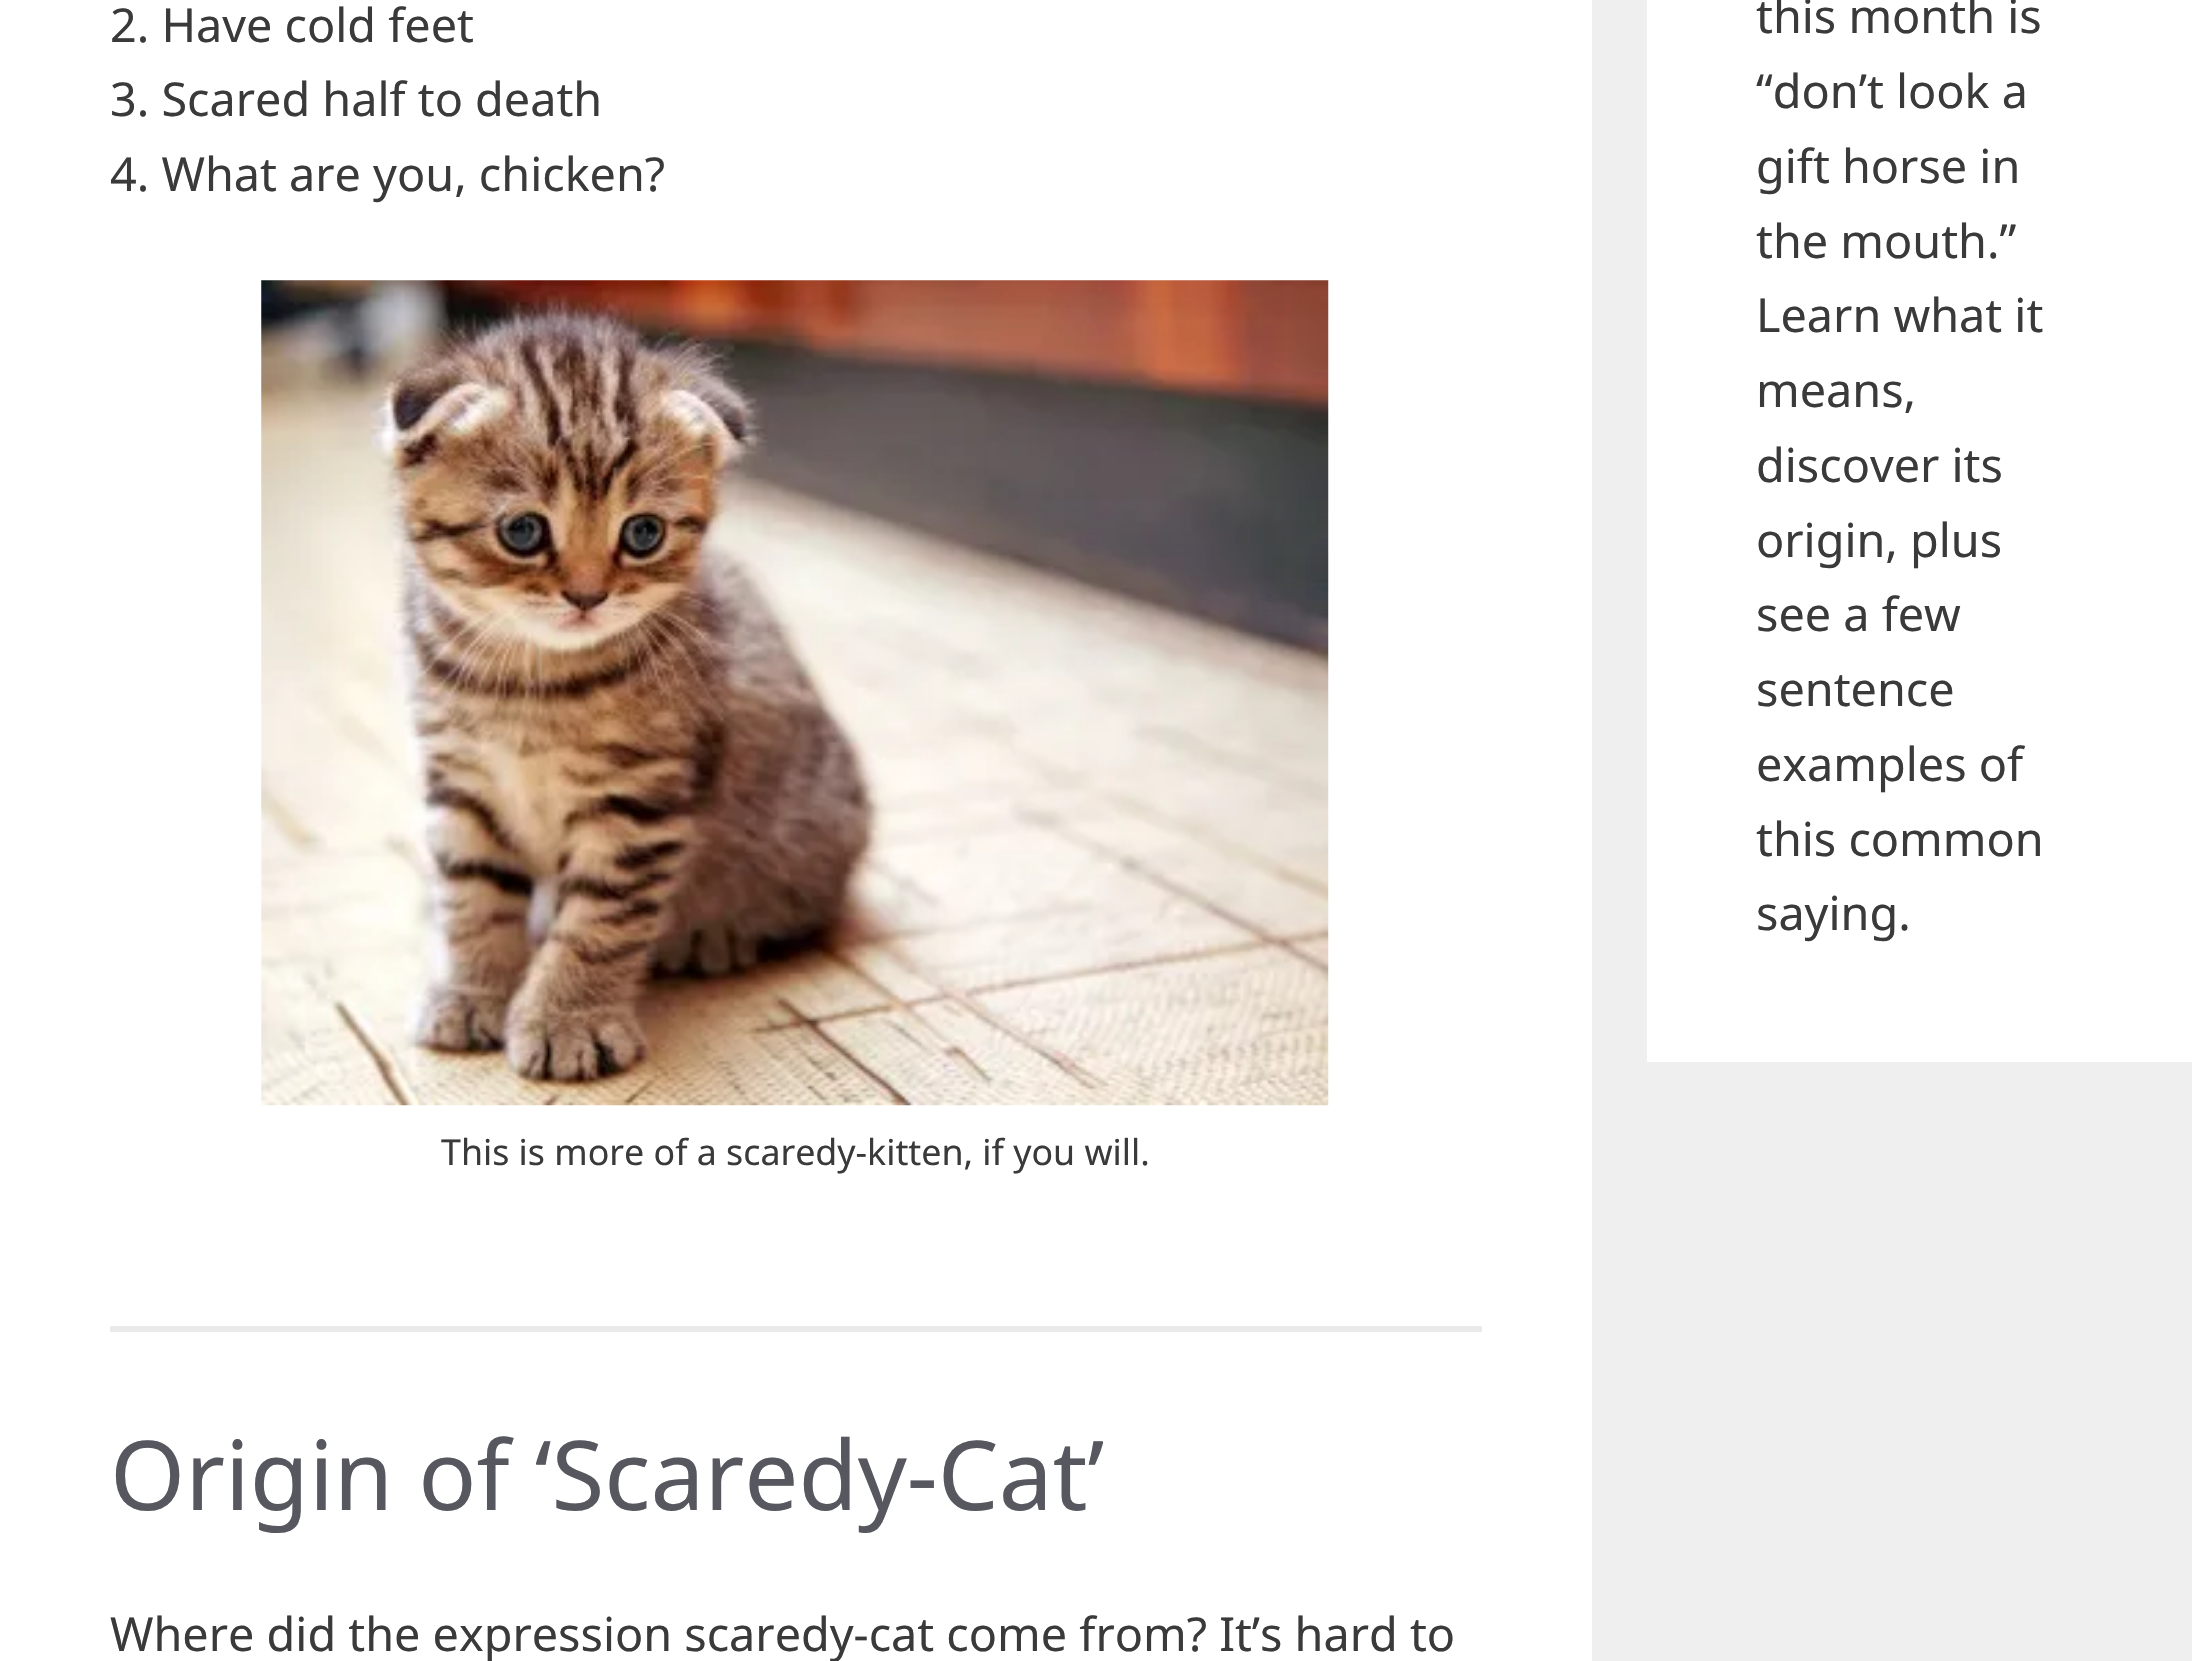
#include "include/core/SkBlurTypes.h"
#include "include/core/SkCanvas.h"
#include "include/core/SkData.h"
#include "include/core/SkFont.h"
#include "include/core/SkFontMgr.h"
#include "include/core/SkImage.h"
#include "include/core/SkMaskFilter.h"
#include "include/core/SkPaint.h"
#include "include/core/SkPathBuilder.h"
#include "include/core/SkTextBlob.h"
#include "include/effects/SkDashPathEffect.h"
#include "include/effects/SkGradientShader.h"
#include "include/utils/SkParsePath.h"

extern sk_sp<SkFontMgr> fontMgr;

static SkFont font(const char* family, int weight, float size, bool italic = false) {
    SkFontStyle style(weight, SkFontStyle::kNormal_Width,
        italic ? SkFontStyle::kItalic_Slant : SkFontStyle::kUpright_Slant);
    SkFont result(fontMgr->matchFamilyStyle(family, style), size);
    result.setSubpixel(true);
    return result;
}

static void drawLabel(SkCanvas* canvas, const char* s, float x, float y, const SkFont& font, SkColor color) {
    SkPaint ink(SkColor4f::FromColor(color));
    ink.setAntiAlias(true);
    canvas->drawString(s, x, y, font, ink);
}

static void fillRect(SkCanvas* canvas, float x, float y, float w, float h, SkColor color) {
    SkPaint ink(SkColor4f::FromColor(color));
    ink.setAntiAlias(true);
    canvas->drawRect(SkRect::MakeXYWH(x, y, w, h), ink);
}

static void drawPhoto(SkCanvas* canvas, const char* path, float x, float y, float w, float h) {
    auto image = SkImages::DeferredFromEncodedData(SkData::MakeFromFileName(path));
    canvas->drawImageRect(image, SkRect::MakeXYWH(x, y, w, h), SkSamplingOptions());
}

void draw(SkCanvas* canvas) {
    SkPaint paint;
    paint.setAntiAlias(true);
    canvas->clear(0xFFEFEFEF);
    fillRect(canvas, 0, 0, 1592, 1661, 0xFFFFFFFF);
    SkFont font1 = font("Noto Sans", 400, 46.75f);
    drawLabel(canvas, "2. Have cold feet", 110, 42, font1, 0xFF3A3A3A);
    drawLabel(canvas, "3. Scared half to death", 110, 116, font1, 0xFF3A3A3A);
    drawLabel(canvas, "4. What are you, chicken?", 110, 191, font1, 0xFF3A3A3A);
    drawPhoto(canvas, "assets/img1.png", 261, 280, 1068, 826);
    SkFont font2 = font("Noto Sans", 400, 35.75f);
    drawLabel(canvas, "This is more of a scaredy-kitten, if you will.", 441, 1165, font2, 0xFF3A3A3A);
    fillRect(canvas, 110, 1326, 1372, 6, 0xFFEAEAEA);
    SkFont font3 = font("Noto Sans", 400, 96.25f);
    drawLabel(canvas, "Origin of ‘Scaredy-Cat’", 110, 1510, font3, 0xFF575760);
    drawLabel(canvas, "Where did the expression scaredy-cat come from? It’s hard to", 110, 1651, font1, 0xFF3A3A3A);
    fillRect(canvas, 1647, 0, 545, 1062, 0xFFFFFFFF);
    drawLabel(canvas, "this month is", 1756, 33, font1, 0xFF3A3A3A);
    drawLabel(canvas, "“don’t look a", 1756, 108, font1, 0xFF3A3A3A);
    drawLabel(canvas, "gift horse in", 1756, 183, font1, 0xFF3A3A3A);
    drawLabel(canvas, "the mouth.”", 1756, 258, font1, 0xFF3A3A3A);
    drawLabel(canvas, "Learn what it", 1756, 332, font1, 0xFF3A3A3A);
    drawLabel(canvas, "means,", 1756, 407, font1, 0xFF3A3A3A);
    drawLabel(canvas, "discover its", 1756, 482, font1, 0xFF3A3A3A);
    drawLabel(canvas, "origin, plus", 1756, 557, font1, 0xFF3A3A3A);
    drawLabel(canvas, "see a few", 1756, 631, font1, 0xFF3A3A3A);
    drawLabel(canvas, "sentence", 1756, 706, font1, 0xFF3A3A3A);
    drawLabel(canvas, "examples of", 1756, 781, font1, 0xFF3A3A3A);
    drawLabel(canvas, "this common", 1756, 856, font1, 0xFF3A3A3A);
    drawLabel(canvas, "saying.", 1756, 930, font1, 0xFF3A3A3A);
}
